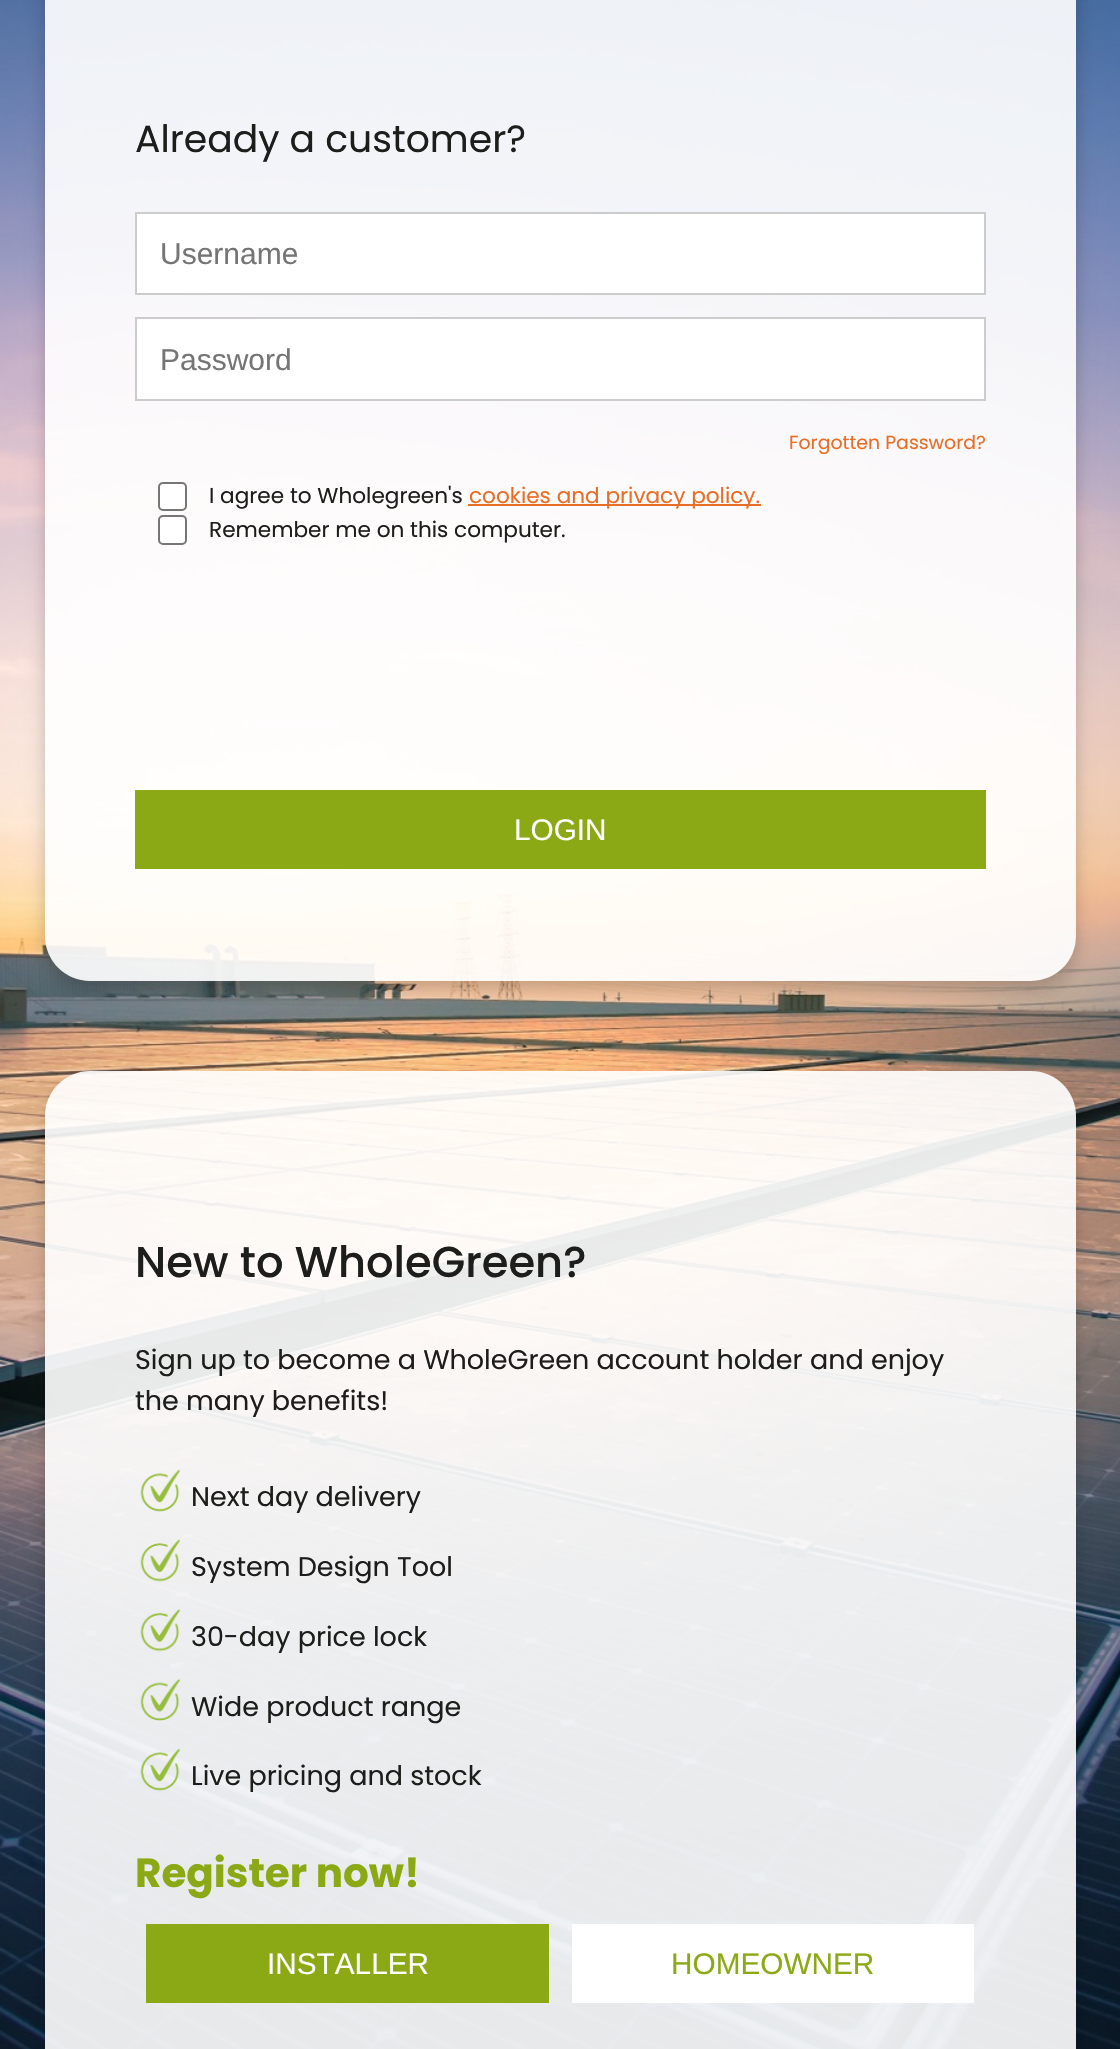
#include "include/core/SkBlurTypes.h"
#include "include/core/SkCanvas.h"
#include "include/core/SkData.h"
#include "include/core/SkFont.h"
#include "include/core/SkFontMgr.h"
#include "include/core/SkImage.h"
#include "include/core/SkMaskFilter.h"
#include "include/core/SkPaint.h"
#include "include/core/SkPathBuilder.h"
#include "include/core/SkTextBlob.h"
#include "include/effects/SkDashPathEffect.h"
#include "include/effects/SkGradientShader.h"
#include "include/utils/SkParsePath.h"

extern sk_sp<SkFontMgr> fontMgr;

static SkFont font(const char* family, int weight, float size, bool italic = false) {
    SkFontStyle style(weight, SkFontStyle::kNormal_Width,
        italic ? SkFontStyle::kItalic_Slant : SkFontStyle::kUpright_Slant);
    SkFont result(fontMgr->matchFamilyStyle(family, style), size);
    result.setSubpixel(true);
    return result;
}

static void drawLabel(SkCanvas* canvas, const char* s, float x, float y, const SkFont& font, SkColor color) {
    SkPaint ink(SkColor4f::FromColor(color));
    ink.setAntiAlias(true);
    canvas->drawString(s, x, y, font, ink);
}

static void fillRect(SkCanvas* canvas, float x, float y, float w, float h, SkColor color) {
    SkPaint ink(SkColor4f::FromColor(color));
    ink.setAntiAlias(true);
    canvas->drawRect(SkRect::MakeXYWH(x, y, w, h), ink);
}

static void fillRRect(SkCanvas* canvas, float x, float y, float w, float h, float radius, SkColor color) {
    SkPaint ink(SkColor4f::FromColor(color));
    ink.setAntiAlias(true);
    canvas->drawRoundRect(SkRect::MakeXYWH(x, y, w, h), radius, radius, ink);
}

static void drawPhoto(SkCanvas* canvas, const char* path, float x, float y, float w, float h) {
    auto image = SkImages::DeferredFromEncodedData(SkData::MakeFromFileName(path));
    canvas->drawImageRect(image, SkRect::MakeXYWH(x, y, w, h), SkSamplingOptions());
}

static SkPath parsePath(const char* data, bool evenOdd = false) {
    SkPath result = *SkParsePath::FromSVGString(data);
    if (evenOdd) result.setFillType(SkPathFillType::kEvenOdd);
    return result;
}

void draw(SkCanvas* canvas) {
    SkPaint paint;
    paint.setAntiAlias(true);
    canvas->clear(0xFFFFFFFF);
    drawPhoto(canvas, "assets/img1.png", 0, 0, 1120, 2049);
    canvas->save();
    canvas->clipPath(parsePath("M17 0H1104V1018H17ZM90-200H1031C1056-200 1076-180 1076-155V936C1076 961 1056 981 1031 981H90C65 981 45 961 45 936V-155C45-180 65-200 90-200Z", true), true);
    paint.setColor(0x33000000);
    paint.setMaskFilter(SkMaskFilter::MakeBlur(kNormal_SkBlurStyle, 9));
    canvas->drawRoundRect(SkRect::MakeXYWH(45, -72, 1031, 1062), 45, 45, paint);
    paint.setMaskFilter(nullptr);
    canvas->restore();
    fillRRect(canvas, 45, -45, 1031, 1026, 45, 0xE6FFFFFF);
    SkFont font1 = font("Poppins", 400, 37.75f);
    drawLabel(canvas, "Already a customer?", 135, 152, font1, 0xFF1D1D1B);
    paint.setColor(0xFFFFFFFF);
    canvas->drawRect(SkRect::MakeXYWH(136, 213, 849, 81), paint);
    paint.setStroke(true);
    paint.setStrokeWidth(2);
    paint.setColor(0xFFCCCCCC);
    canvas->drawRect(SkRect::MakeXYWH(136, 213, 849, 81), paint);
    SkFont font2 = font("Liberation Sans", 400, 30);
    drawLabel(canvas, "Username", 160, 264, font2, 0xFF757575);
    paint.setStroke(false);
    paint.setColor(0xFFFFFFFF);
    canvas->drawRect(SkRect::MakeXYWH(136, 318, 849, 82), paint);
    paint.setStroke(true);
    paint.setColor(0xFFCCCCCC);
    canvas->drawRect(SkRect::MakeXYWH(136, 318, 849, 82), paint);
    drawLabel(canvas, "Password", 160, 370, font2, 0xFF757575);
    SkFont font3 = font("Poppins", 400, 18.9f);
    drawLabel(canvas, "Forgotten Password?", 789, 449, font3, 0xFFE86D25);
    paint.setStroke(false);
    paint.setColor(0xFFFFFFFF);
    canvas->drawRoundRect(SkRect::MakeXYWH(159, 483, 27, 27), 4, 4, paint);
    paint.setStroke(true);
    paint.setColor(0xFF767676);
    canvas->drawRoundRect(SkRect::MakeXYWH(159, 483, 27, 27), 4, 4, paint);
    SkFont font4 = font("Poppins", 400, 21.6f);
    drawLabel(canvas, "I agree to Wholegreen's", 209, 503, font4, 0xFF1D1D1B);
    fillRect(canvas, 468, 504, 293, 2, 0xFFE86D25);
    drawLabel(canvas, "cookies and privacy policy.", 469, 503, font4, 0xFFE86D25);
    paint.setStroke(false);
    paint.setColor(0xFFFFFFFF);
    canvas->drawRoundRect(SkRect::MakeXYWH(159, 516, 27, 28), 4, 4, paint);
    paint.setStroke(true);
    paint.setColor(0xFF767676);
    canvas->drawRoundRect(SkRect::MakeXYWH(159, 516, 27, 28), 4, 4, paint);
    drawLabel(canvas, "Remember me on this computer.", 209, 537, font4, 0xFF1D1D1B);
    fillRect(canvas, 135, 790, 851, 79, 0xFF8AA915);
    SkFont font5 = font("Liberation Sans", 400, 29.75f);
    drawLabel(canvas, "LOGIN", 514, 840, font5, 0xFFFFFFFF);
    canvas->save();
    canvas->clipPath(parsePath("M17 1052H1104V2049H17ZM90 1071H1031C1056 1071 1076 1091 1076 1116V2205C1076 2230 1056 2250 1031 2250H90C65 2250 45 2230 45 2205V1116C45 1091 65 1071 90 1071Z", true), true);
    paint.setStroke(false);
    paint.setColor(0x33000000);
    paint.setMaskFilter(SkMaskFilter::MakeBlur(kNormal_SkBlurStyle, 9));
    canvas->drawRoundRect(SkRect::MakeXYWH(45, 1080, 1031, 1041), 45, 45, paint);
    paint.setMaskFilter(nullptr);
    canvas->restore();
    fillRRect(canvas, 45, 1071, 1031, 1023, 45, 0xE6FFFFFF);
    SkFont font6 = font("Poppins", 500, 43.25f);
    drawLabel(canvas, "New to WholeGreen?", 135, 1277, font6, 0xFF1D1D1B);
    SkFont font7 = font("Poppins", 400, 27);
    drawLabel(canvas, "Sign up to become a WholeGreen account holder and enjoy", 135, 1369, font7, 0xFF1D1D1B);
    drawLabel(canvas, "the many benefits!", 135, 1410, font7, 0xFF1D1D1B);
    drawPhoto(canvas, "assets/img2.png", 140, 1469, 40, 43);
    drawLabel(canvas, "Next day delivery", 191, 1506, font7, 0xFF1D1D1B);
    drawPhoto(canvas, "assets/img3.png", 140, 1539, 40, 43);
    drawLabel(canvas, "System Design Tool", 191, 1576, font7, 0xFF1D1D1B);
    drawPhoto(canvas, "assets/img4.png", 140, 1609, 40, 43);
    drawLabel(canvas, "30-day price lock", 191, 1646, font7, 0xFF1D1D1B);
    drawPhoto(canvas, "assets/img5.png", 140, 1678, 40, 43);
    drawLabel(canvas, "Wide product range", 191, 1716, font7, 0xFF1D1D1B);
    drawPhoto(canvas, "assets/img6.png", 140, 1748, 40, 43);
    drawLabel(canvas, "Live pricing and stock", 191, 1785, font7, 0xFF1D1D1B);
    SkFont font8 = font("Poppins", 700, 40.5f);
    drawLabel(canvas, "Register now!", 135, 1887, font8, 0xFF8AA915);
    fillRect(canvas, 146, 1924, 403, 79, 0xFF8AA915);
    drawLabel(canvas, "INSTALLER", 267, 1974, font5, 0xFFFFFFFF);
    fillRect(canvas, 572, 1924, 402, 79, 0xFFFFFFFF);
    drawLabel(canvas, "HOMEOWNER", 671, 1974, font5, 0xFF8AA915);
}
